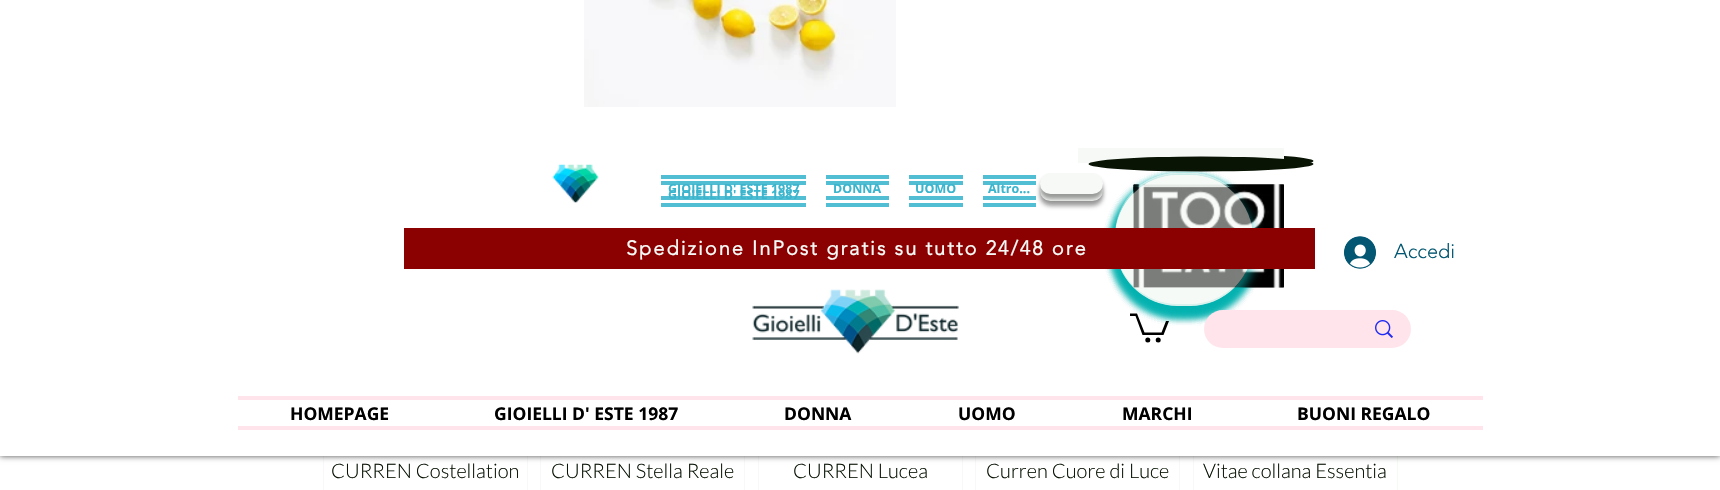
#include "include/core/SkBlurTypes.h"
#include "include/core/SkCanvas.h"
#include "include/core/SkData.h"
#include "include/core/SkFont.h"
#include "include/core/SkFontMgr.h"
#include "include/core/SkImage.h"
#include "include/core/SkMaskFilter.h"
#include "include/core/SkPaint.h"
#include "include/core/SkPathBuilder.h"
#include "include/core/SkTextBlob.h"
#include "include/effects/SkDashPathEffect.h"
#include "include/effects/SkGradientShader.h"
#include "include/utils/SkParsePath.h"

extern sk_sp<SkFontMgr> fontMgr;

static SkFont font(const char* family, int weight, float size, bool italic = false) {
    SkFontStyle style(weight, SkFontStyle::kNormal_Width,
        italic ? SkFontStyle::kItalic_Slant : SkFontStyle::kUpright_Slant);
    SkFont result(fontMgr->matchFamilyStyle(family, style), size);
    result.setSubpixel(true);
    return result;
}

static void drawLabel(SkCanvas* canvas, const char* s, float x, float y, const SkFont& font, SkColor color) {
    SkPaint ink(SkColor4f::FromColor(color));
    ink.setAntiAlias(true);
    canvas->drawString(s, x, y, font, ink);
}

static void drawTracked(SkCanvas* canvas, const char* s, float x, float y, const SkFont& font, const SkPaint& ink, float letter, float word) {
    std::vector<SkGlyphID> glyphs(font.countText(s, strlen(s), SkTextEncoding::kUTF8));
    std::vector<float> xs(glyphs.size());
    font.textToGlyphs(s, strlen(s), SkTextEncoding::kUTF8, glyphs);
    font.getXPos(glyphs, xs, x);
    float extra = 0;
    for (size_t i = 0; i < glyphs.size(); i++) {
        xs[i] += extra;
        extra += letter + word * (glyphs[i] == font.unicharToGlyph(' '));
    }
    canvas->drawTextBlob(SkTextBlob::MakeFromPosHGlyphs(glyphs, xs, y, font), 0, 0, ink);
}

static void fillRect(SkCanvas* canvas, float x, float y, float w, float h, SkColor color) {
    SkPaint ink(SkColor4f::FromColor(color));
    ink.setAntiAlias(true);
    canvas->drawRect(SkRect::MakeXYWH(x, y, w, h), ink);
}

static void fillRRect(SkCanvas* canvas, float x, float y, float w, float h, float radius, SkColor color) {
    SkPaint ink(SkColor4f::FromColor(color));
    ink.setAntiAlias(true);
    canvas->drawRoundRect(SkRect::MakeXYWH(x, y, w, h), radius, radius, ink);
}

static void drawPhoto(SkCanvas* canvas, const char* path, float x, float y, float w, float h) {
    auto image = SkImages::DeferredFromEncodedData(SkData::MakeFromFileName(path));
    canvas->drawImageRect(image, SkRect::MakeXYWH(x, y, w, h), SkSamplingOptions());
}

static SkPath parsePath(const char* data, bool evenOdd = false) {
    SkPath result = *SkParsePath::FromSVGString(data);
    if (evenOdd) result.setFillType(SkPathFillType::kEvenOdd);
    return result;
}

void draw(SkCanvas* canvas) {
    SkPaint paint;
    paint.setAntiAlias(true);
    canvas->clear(0xFFFFFFFF);
    paint.setStroke(true);
    paint.setStrokeWidth(1);
    paint.setColor(0xFFF6F9F5);
    canvas->drawRect(SkRect::MakeXYWH(323.5f, 234.5f, 204, 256), paint);
    canvas->drawRect(SkRect::MakeXYWH(540.5f, 234.5f, 204, 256), paint);
    canvas->drawRect(SkRect::MakeXYWH(758.5f, 234.5f, 204, 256), paint);
    canvas->drawRect(SkRect::MakeXYWH(975.5f, 234.5f, 204, 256), paint);
    canvas->drawRect(SkRect::MakeXYWH(1193.5f, 234.5f, 204, 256), paint);
    paint.setStroke(false);
    paint.setColor(0xB3000000);
    paint.setMaskFilter(SkMaskFilter::MakeBlur(kNormal_SkBlurStyle, 3));
    canvas->drawRect(SkRect::MakeXYWH(0, 0, 1720, 456), paint);
    paint.setMaskFilter(nullptr);
    fillRect(canvas, 0, 0, 1720, 456, 0xFFFFFFFF);
    drawPhoto(canvas, "assets/img1.png", 584, 0, 312, 107);
    fillRect(canvas, 1078, 148, 206, 2, 0xFFF6F9F5);
    drawPhoto(canvas, "assets/img6.png", 1133, 184, 151, 101);
    drawPhoto(canvas, "assets/img5.png", 1133, 184, 151, 101);
    canvas->save();
    canvas->clipPath(parsePath("M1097 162H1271V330H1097ZM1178 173H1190C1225 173 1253 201 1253 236V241C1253 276 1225 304 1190 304H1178C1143 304 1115 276 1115 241V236C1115 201 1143 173 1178 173Z", true), true);
    paint.setColor(0x9901B1AF);
    paint.setMaskFilter(SkMaskFilter::MakeBlur(kNormal_SkBlurStyle, 5));
    canvas->drawRoundRect(SkRect::MakeXYWH(1113, 178, 142, 136), 65, 65, paint);
    paint.setMaskFilter(nullptr);
    canvas->restore();
    fillRRect(canvas, 1115, 173, 138, 131, 63, 0x80F6F9F5);
    drawPhoto(canvas, "assets/img4.png", 1133, 184, 151, 101);
    canvas->save();
    canvas->clipPath(parsePath("M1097 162H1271V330H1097ZM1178 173H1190C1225 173 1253 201 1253 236V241C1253 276 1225 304 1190 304H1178C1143 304 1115 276 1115 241V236C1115 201 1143 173 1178 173Z", true), true);
    paint.setMaskFilter(SkMaskFilter::MakeBlur(kNormal_SkBlurStyle, 5));
    canvas->drawRoundRect(SkRect::MakeXYWH(1113, 178, 142, 136), 65, 65, paint);
    paint.setMaskFilter(nullptr);
    canvas->restore();
    fillRRect(canvas, 1115, 173, 138, 131, 63, 0x80F6F9F5);
    drawPhoto(canvas, "assets/img3.png", 1133, 184, 151, 101);
    canvas->save();
    canvas->clipPath(parsePath("M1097 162H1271V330H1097ZM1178 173H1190C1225 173 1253 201 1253 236V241C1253 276 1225 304 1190 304H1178C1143 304 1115 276 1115 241V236C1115 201 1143 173 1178 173Z", true), true);
    paint.setMaskFilter(SkMaskFilter::MakeBlur(kNormal_SkBlurStyle, 5));
    canvas->drawRoundRect(SkRect::MakeXYWH(1113, 178, 142, 136), 65, 65, paint);
    paint.setMaskFilter(nullptr);
    canvas->restore();
    paint.setColor(0xFF091405);
    canvas->drawOval(SkRect::MakeXYWH(1088.5f, 153.5f, 225, 15), paint);
    fillRRect(canvas, 1115, 173, 138, 131, 63, 0x80F6F9F5);
    drawPhoto(canvas, "assets/img2.png", 1133, 184, 151, 101);
    canvas->save();
    canvas->clipPath(parsePath("M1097 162H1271V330H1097ZM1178 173H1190C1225 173 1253 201 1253 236V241C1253 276 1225 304 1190 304H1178C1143 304 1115 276 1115 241V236C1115 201 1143 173 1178 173Z", true), true);
    paint.setColor(0x9901B1AF);
    paint.setMaskFilter(SkMaskFilter::MakeBlur(kNormal_SkBlurStyle, 5));
    canvas->drawRoundRect(SkRect::MakeXYWH(1113, 178, 142, 136), 65, 65, paint);
    paint.setMaskFilter(nullptr);
    canvas->restore();
    fillRRect(canvas, 1115, 173, 138, 131, 63, 0x80F6F9F5);
    drawPhoto(canvas, "assets/img7.png", 552, 164, 47, 39);
    fillRect(canvas, 1078, 150, 206, 13, 0xFFF6F9F5);
    drawPhoto(canvas, "assets/img10.png", 1133, 187, 151, 101);
    canvas->save();
    canvas->clipPath(parsePath("M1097 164H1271V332H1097ZM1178 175H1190C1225 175 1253 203 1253 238V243C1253 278 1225 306 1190 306H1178C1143 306 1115 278 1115 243V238C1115 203 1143 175 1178 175Z", true), true);
    paint.setMaskFilter(SkMaskFilter::MakeBlur(kNormal_SkBlurStyle, 5));
    canvas->drawRoundRect(SkRect::MakeXYWH(1113, 180, 142, 136), 65, 65, paint);
    paint.setMaskFilter(nullptr);
    canvas->restore();
    fillRRect(canvas, 1115, 175, 138, 131, 63, 0x80F6F9F5);
    drawPhoto(canvas, "assets/img9.png", 1133, 187, 151, 101);
    canvas->save();
    canvas->clipPath(parsePath("M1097 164H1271V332H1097ZM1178 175H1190C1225 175 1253 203 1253 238V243C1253 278 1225 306 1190 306H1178C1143 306 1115 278 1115 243V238C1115 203 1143 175 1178 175Z", true), true);
    paint.setMaskFilter(SkMaskFilter::MakeBlur(kNormal_SkBlurStyle, 5));
    canvas->drawRoundRect(SkRect::MakeXYWH(1113, 180, 142, 136), 65, 65, paint);
    paint.setMaskFilter(nullptr);
    canvas->restore();
    paint.setColor(0xFF091405);
    canvas->drawOval(SkRect::MakeXYWH(1088.5f, 156.5f, 225, 15), paint);
    fillRect(canvas, 983, 175, 53, 4, 0xFF52BED3);
    fillRect(canvas, 983, 196, 53, 4, 0xE03AB5CD);
    fillRRect(canvas, 1115, 175, 138, 131, 63, 0x80F6F9F5);
    drawPhoto(canvas, "assets/img8.png", 1133, 187, 151, 101);
    canvas->save();
    canvas->clipPath(parsePath("M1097 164H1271V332H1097ZM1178 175H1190C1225 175 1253 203 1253 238V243C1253 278 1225 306 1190 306H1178C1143 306 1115 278 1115 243V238C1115 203 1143 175 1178 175Z", true), true);
    paint.setColor(0x9901B1AF);
    paint.setMaskFilter(SkMaskFilter::MakeBlur(kNormal_SkBlurStyle, 5));
    canvas->drawRoundRect(SkRect::MakeXYWH(1113, 180, 142, 136), 65, 65, paint);
    paint.setMaskFilter(nullptr);
    canvas->restore();
    fillRect(canvas, 983, 181, 53, 4, 0xFF52BED3);
    fillRect(canvas, 983, 203, 53, 4, 0xFF52BED3);
    paint.setColor(0x61000000);
    paint.setMaskFilter(SkMaskFilter::MakeBlur(kNormal_SkBlurStyle, 2));
    canvas->drawRoundRect(SkRect::MakeXYWH(1040, 185, 63, 21), 10.5f, 10.5f, paint);
    paint.setMaskFilter(nullptr);
    fillRRect(canvas, 1040, 180, 63, 21, 10.5f, 0xFFF6F9F5);
    paint.setMaskFilter(SkMaskFilter::MakeBlur(kNormal_SkBlurStyle, 2));
    canvas->drawRoundRect(SkRect::MakeXYWH(1040, 178, 63, 21), 10.5f, 10.5f, paint);
    paint.setMaskFilter(nullptr);
    fillRRect(canvas, 1040, 173, 63, 21, 10.5f, 0xFFF6F9F5);
    fillRRect(canvas, 1115, 175, 138, 131, 63, 0x80F6F9F5);
    fillRect(canvas, 661, 175, 145, 4, 0xFF52BED3);
    SkFont font1 = font("Open Sans", 700, 12.5f);
    drawLabel(canvas, "GIOIELLI D' ESTE 1987", 668, 199, font1, 0xFF3AB5CD);
    fillRect(canvas, 661, 196, 145, 4, 0xE03AB5CD);
    fillRect(canvas, 661, 181, 145, 4, 0xFF52BED3);
    drawLabel(canvas, "GIOIELLI D' ESTE 1987", 668, 193, font1, 0xFF3AB5CD);
    fillRect(canvas, 826, 175, 63, 4, 0xFF52BED3);
    fillRect(canvas, 826, 196, 63, 4, 0xE03AB5CD);
    fillRect(canvas, 826, 181, 63, 4, 0xFF52BED3);
    drawLabel(canvas, "DONNA", 833, 193, font1, 0xFF3AB5CD);
    fillRect(canvas, 909, 175, 54, 4, 0xFF52BED3);
    fillRect(canvas, 909, 196, 54, 4, 0xE03AB5CD);
    fillRect(canvas, 909, 181, 54, 4, 0xFF52BED3);
    drawLabel(canvas, "UOMO", 915, 193, font1, 0xFF3AB5CD);
    drawLabel(canvas, "Altro...", 988, 193, font1, 0xFF3AB5CD);
    fillRect(canvas, 661, 203, 145, 4, 0xFF52BED3);
    fillRect(canvas, 826, 203, 63, 4, 0xFF52BED3);
    fillRect(canvas, 909, 203, 54, 4, 0xFF52BED3);
    fillRect(canvas, 404, 228, 911, 41, 0xFF8B0000);
    SkFont font2 = font("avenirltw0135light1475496", 700, 20);
    paint.setColor(0xFFF6F9F5);
    drawTracked(canvas, "Spedizione InPost gratis su tutto 24/48 ore", 626, 255, font2, paint, 2, 0);
    drawPhoto(canvas, "assets/img11.png", 1344, 236, 32, 33);
    SkFont font3 = font("avenirltw0135light1475496", 300, 20);
    drawLabel(canvas, "Accedi", 1394, 258, font3, 0xFF035772);
    drawPhoto(canvas, "assets/img12.png", 752, 289, 207, 65);
    paint.setColor(0xFF000000);
    canvas->drawPath(parsePath("M1169 321L1163.5 335H1142.5L1135.5 316H1130V313.5H1137L1144.5 332.5H1161.5L1166 321"), paint);
    canvas->drawCircle(1158.2f, 340, 2.5f, paint);
    canvas->drawCircle(1147.8f, 340, 2.5f, paint);
    fillRRect(canvas, 1204, 310, 207, 38, 19, 0xFFFFE4EC);
    drawPhoto(canvas, "assets/img13.png", 1375, 320, 18, 18);
    fillRect(canvas, 238, 396, 1245, 4, 0xFFFFE4EC);
    fillRect(canvas, 238, 426, 1245, 4, 0xFFFFE4EC);
    SkFont font4 = font("Open Sans", 700, 17.5f);
    drawLabel(canvas, "HOMEPAGE", 290, 420, font4, 0xFF000000);
    drawLabel(canvas, "GIOIELLI D' ESTE 1987", 494, 420, font4, 0xFF000000);
    drawLabel(canvas, "DONNA", 784, 420, font4, 0xFF000000);
    drawLabel(canvas, "UOMO", 958, 420, font4, 0xFF000000);
    drawLabel(canvas, "MARCHI", 1122, 420, font4, 0xFF000000);
    drawLabel(canvas, "BUONI REGALO", 1297, 420, font4, 0xFF000000);
    SkFont font5 = font("Lato", 300, 20);
    drawLabel(canvas, "CURREN Costellation", 331, 478, font5, 0xFF091405);
    drawLabel(canvas, "CURREN Stella Reale", 551, 478, font5, 0xFF091405);
    drawLabel(canvas, "CURREN Lucea", 793, 478, font5, 0xFF091405);
    drawLabel(canvas, "Curren Cuore di Luce", 986, 478, font5, 0xFF091405);
    drawLabel(canvas, "Vitae collana Essentia", 1203, 478, font5, 0xFF091405);
}
